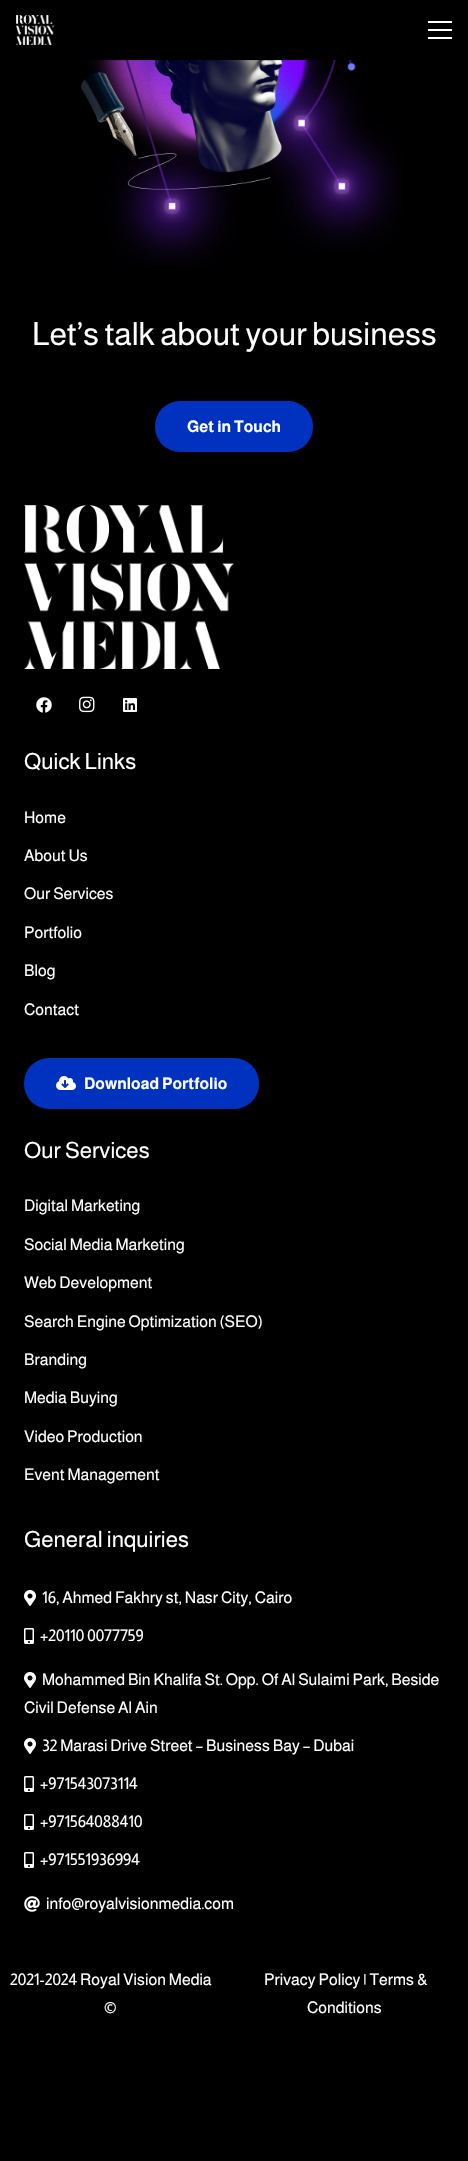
#include "include/core/SkBlurTypes.h"
#include "include/core/SkCanvas.h"
#include "include/core/SkData.h"
#include "include/core/SkFont.h"
#include "include/core/SkFontMgr.h"
#include "include/core/SkImage.h"
#include "include/core/SkMaskFilter.h"
#include "include/core/SkPaint.h"
#include "include/core/SkPathBuilder.h"
#include "include/core/SkTextBlob.h"
#include "include/effects/SkDashPathEffect.h"
#include "include/effects/SkGradientShader.h"
#include "include/utils/SkParsePath.h"

extern sk_sp<SkFontMgr> fontMgr;

static SkFont font(const char* family, int weight, float size, bool italic = false) {
    SkFontStyle style(weight, SkFontStyle::kNormal_Width,
        italic ? SkFontStyle::kItalic_Slant : SkFontStyle::kUpright_Slant);
    SkFont result(fontMgr->matchFamilyStyle(family, style), size);
    result.setSubpixel(true);
    return result;
}

static void drawLabel(SkCanvas* canvas, const char* s, float x, float y, const SkFont& font, SkColor color) {
    SkPaint ink(SkColor4f::FromColor(color));
    ink.setAntiAlias(true);
    canvas->drawString(s, x, y, font, ink);
}

static void fillRect(SkCanvas* canvas, float x, float y, float w, float h, SkColor color) {
    SkPaint ink(SkColor4f::FromColor(color));
    ink.setAntiAlias(true);
    canvas->drawRect(SkRect::MakeXYWH(x, y, w, h), ink);
}

static void fillRRect(SkCanvas* canvas, float x, float y, float w, float h, float radius, SkColor color) {
    SkPaint ink(SkColor4f::FromColor(color));
    ink.setAntiAlias(true);
    canvas->drawRoundRect(SkRect::MakeXYWH(x, y, w, h), radius, radius, ink);
}

static void drawPhoto(SkCanvas* canvas, const char* path, float x, float y, float w, float h) {
    auto image = SkImages::DeferredFromEncodedData(SkData::MakeFromFileName(path));
    canvas->drawImageRect(image, SkRect::MakeXYWH(x, y, w, h), SkSamplingOptions());
}

void draw(SkCanvas* canvas) {
    SkPaint paint;
    paint.setAntiAlias(true);
    canvas->clear(0xFF000000);
    drawPhoto(canvas, "assets/img2.png", 47, 60, 355, 206);
    fillRect(canvas, 101, 60, 250, 1, 0x14000000);
    drawPhoto(canvas, "assets/img1.png", 16, 15, 39, 30);
    fillRect(canvas, 428, 29, 24, 2, 0xFFFFFFFF);
    fillRect(canvas, 428, 21, 24, 2, 0xFFFFFFFF);
    fillRect(canvas, 428, 37, 24, 2, 0xFFFFFFFF);
    SkFont font1 = font("Almarai", 400, 32);
    drawLabel(canvas, "Let’s talk about your business", 32, 345, font1, 0xFFFFFFFF);
    fillRRect(canvas, 155, 401, 158, 51, 25, 0xFF0032BF);
    SkFont font2 = font("Almarai", 700, 16);
    drawLabel(canvas, "Get in Touch", 187, 432, font2, 0xFFFFFFFF);
    drawPhoto(canvas, "assets/img3.png", 24, 505, 210, 164);
    drawPhoto(canvas, "assets/img4.png", 36, 697, 16, 16);
    drawPhoto(canvas, "assets/img5.png", 79, 696, 16, 17);
    drawPhoto(canvas, "assets/img6.png", 123, 698, 14, 14);
    SkFont font3 = font("Almarai", 400, 22.5f);
    drawLabel(canvas, "Quick Links", 24, 769, font3, 0xFFFFFFFF);
    SkFont font4 = font("Almarai", 400, 16);
    drawLabel(canvas, "Home", 24, 823, font4, 0xFFFFFFFF);
    drawLabel(canvas, "About Us", 24, 861, font4, 0xFFFFFFFF);
    drawLabel(canvas, "Our Services", 24, 899, font4, 0xFFFFFFFF);
    drawLabel(canvas, "Portfolio", 24, 938, font4, 0xFFFFFFFF);
    drawLabel(canvas, "Blog", 24, 976, font4, 0xFFFFFFFF);
    drawLabel(canvas, "Contact", 24, 1015, font4, 0xFFFFFFFF);
    fillRRect(canvas, 24, 1058, 235, 51, 25, 0xFF0032BF);
    drawPhoto(canvas, "assets/img7.png", 56, 1076, 20, 14);
    drawLabel(canvas, "Download Portfolio", 84, 1089, font2, 0xFFFFFFFF);
    drawLabel(canvas, "Our Services", 24, 1158, font3, 0xFFFFFFFF);
    drawLabel(canvas, "Digital Marketing", 24, 1211, font4, 0xFFFFFFFF);
    drawLabel(canvas, "Social Media Marketing", 24, 1250, font4, 0xFFFFFFFF);
    drawLabel(canvas, "Web Development", 24, 1288, font4, 0xFFFFFFFF);
    drawLabel(canvas, "Search Engine Optimization (SEO)", 24, 1327, font4, 0xFFFFFFFF);
    drawLabel(canvas, "Branding", 24, 1365, font4, 0xFFFFFFFF);
    drawLabel(canvas, "Media Buying", 24, 1403, font4, 0xFFFFFFFF);
    drawLabel(canvas, "Video Production", 24, 1442, font4, 0xFFFFFFFF);
    drawLabel(canvas, "Event Management", 24, 1480, font4, 0xFFFFFFFF);
    drawLabel(canvas, "General inquiries", 24, 1547, font3, 0xFFFFFFFF);
    drawPhoto(canvas, "assets/img8.png", 24, 1590, 12, 16);
    drawLabel(canvas, "16, Ahmed Fakhry st, Nasr City, Cairo", 42, 1603, font4, 0xFFFFFFFF);
    drawPhoto(canvas, "assets/img9.png", 24, 1628, 10, 16);
    drawLabel(canvas, "+20110 0077759", 40, 1641, font4, 0xFFFFFFFF);
    drawPhoto(canvas, "assets/img8.png", 24, 1672, 12, 16);
    drawLabel(canvas, "Mohammed Bin Khalifa St. Opp. Of Al Sulaimi Park, Beside", 42, 1685, font4, 0xFFFFFFFF);
    drawLabel(canvas, "Civil Defense Al Ain", 24, 1713, font4, 0xFFFFFFFF);
    drawPhoto(canvas, "assets/img8.png", 24, 1738, 12, 16);
    drawLabel(canvas, "32 Marasi Drive Street – Business Bay – Dubai", 42, 1751, font4, 0xFFFFFFFF);
    drawPhoto(canvas, "assets/img9.png", 24, 1776, 10, 16);
    drawLabel(canvas, "+971543073114", 40, 1789, font4, 0xFFFFFFFF);
    drawPhoto(canvas, "assets/img9.png", 24, 1814, 10, 16);
    drawLabel(canvas, "+971564088410", 40, 1827, font4, 0xFFFFFFFF);
    drawPhoto(canvas, "assets/img9.png", 24, 1852, 10, 16);
    drawLabel(canvas, "+971551936994", 40, 1865, font4, 0xFFFFFFFF);
    drawPhoto(canvas, "assets/img10.png", 24, 1896, 16, 16);
    drawLabel(canvas, "info@royalvisionmedia.com", 46, 1909, font4, 0xFFFFFFFF);
    drawLabel(canvas, "2021-2024 Royal Vision Media", 10, 1985, font4, 0xFFFFFFFF);
    drawLabel(canvas, "©", 104, 2013, font4, 0xFFFFFFFF);
    drawLabel(canvas, "Privacy Policy | Terms &", 264, 1985, font4, 0xFFFFFFFF);
    drawLabel(canvas, "Conditions", 307, 2013, font4, 0xFFFFFFFF);
}
